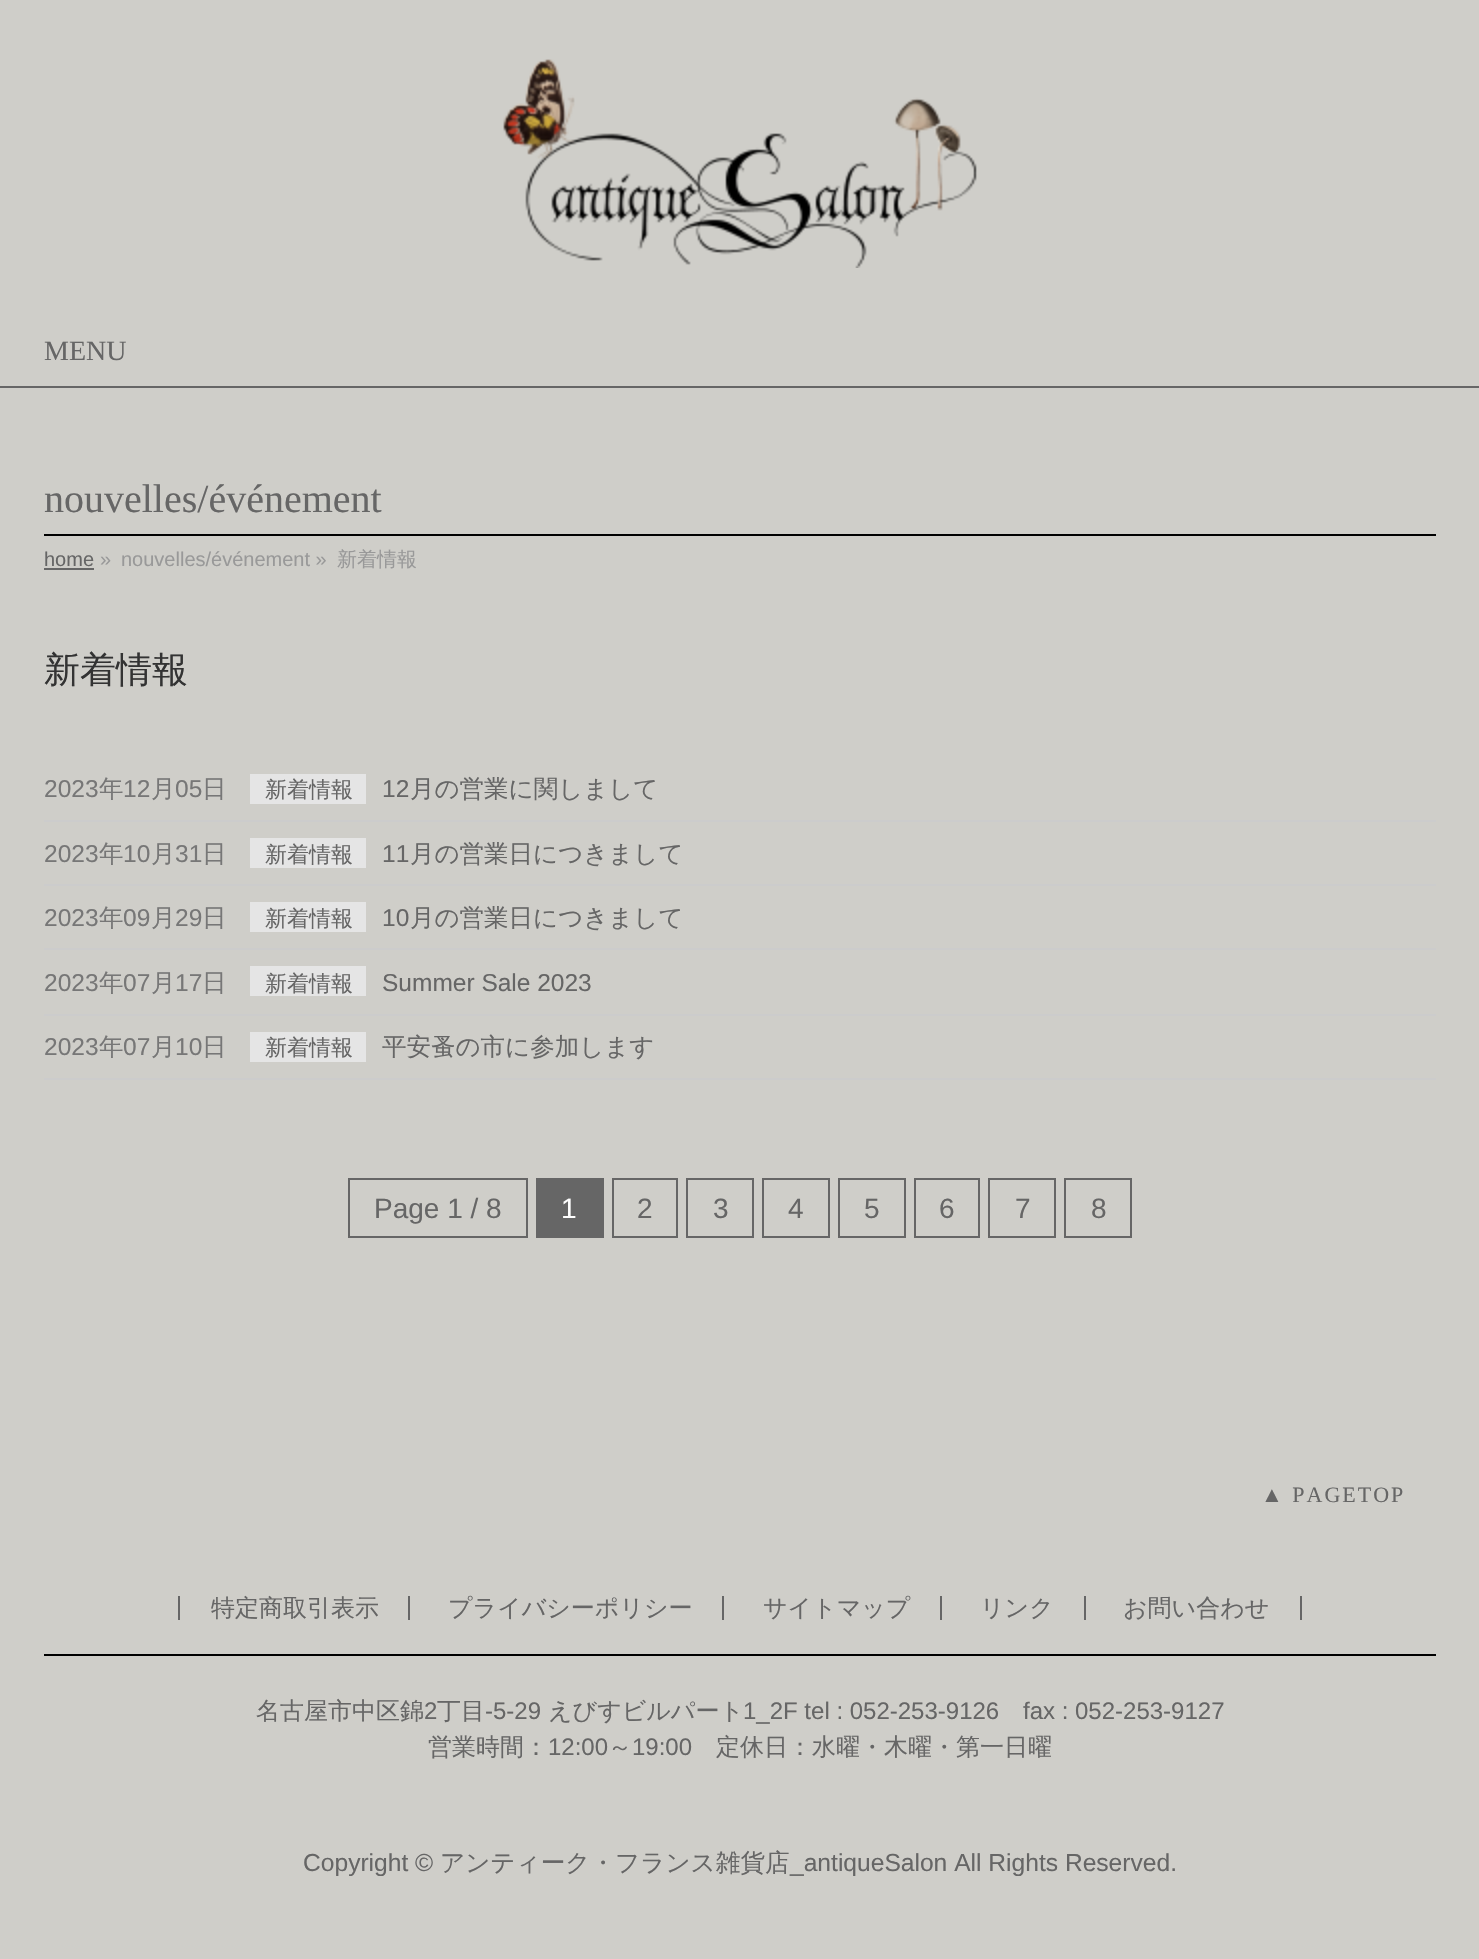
#include "include/core/SkBlurTypes.h"
#include "include/core/SkCanvas.h"
#include "include/core/SkData.h"
#include "include/core/SkFont.h"
#include "include/core/SkFontMgr.h"
#include "include/core/SkImage.h"
#include "include/core/SkMaskFilter.h"
#include "include/core/SkPaint.h"
#include "include/core/SkPathBuilder.h"
#include "include/core/SkTextBlob.h"
#include "include/effects/SkDashPathEffect.h"
#include "include/effects/SkGradientShader.h"
#include "include/utils/SkParsePath.h"

extern sk_sp<SkFontMgr> fontMgr;

static SkFont font(const char* family, int weight, float size, bool italic = false) {
    SkFontStyle style(weight, SkFontStyle::kNormal_Width,
        italic ? SkFontStyle::kItalic_Slant : SkFontStyle::kUpright_Slant);
    SkFont result(fontMgr->matchFamilyStyle(family, style), size);
    result.setSubpixel(true);
    return result;
}

static void drawLabel(SkCanvas* canvas, const char* s, float x, float y, const SkFont& font, SkColor color) {
    SkPaint ink(SkColor4f::FromColor(color));
    ink.setAntiAlias(true);
    canvas->drawString(s, x, y, font, ink);
}

static void drawTracked(SkCanvas* canvas, const char* s, float x, float y, const SkFont& font, const SkPaint& ink, float letter, float word) {
    std::vector<SkGlyphID> glyphs(font.countText(s, strlen(s), SkTextEncoding::kUTF8));
    std::vector<float> xs(glyphs.size());
    font.textToGlyphs(s, strlen(s), SkTextEncoding::kUTF8, glyphs);
    font.getXPos(glyphs, xs, x);
    float extra = 0;
    for (size_t i = 0; i < glyphs.size(); i++) {
        xs[i] += extra;
        extra += letter + word * (glyphs[i] == font.unicharToGlyph(' '));
    }
    canvas->drawTextBlob(SkTextBlob::MakeFromPosHGlyphs(glyphs, xs, y, font), 0, 0, ink);
}

static void fillRect(SkCanvas* canvas, float x, float y, float w, float h, SkColor color) {
    SkPaint ink(SkColor4f::FromColor(color));
    ink.setAntiAlias(true);
    canvas->drawRect(SkRect::MakeXYWH(x, y, w, h), ink);
}

static void drawPhoto(SkCanvas* canvas, const char* path, float x, float y, float w, float h) {
    auto image = SkImages::DeferredFromEncodedData(SkData::MakeFromFileName(path));
    canvas->drawImageRect(image, SkRect::MakeXYWH(x, y, w, h), SkSamplingOptions());
}

void draw(SkCanvas* canvas) {
    SkPaint paint;
    paint.setAntiAlias(true);
    canvas->clear(0xFFCFCEC9);
    drawPhoto(canvas, "assets/img1.png", 503, 59, 474, 209);
    fillRect(canvas, 0, 386, 1479, 2, 0xFF666666);
    SkFont font1 = font("Liberation Serif", 400, 28);
    drawLabel(canvas, "MENU", 44, 360, font1, 0xFF666666);
    fillRect(canvas, 44, 534, 1392, 2, 0xFF000000);
    SkFont font2 = font("Liberation Serif", 400, 40);
    drawLabel(canvas, "nouvelles/événement", 44, 512, font2, 0xFF666666);
    SkFont font3 = font("Liberation Sans", 400, 20);
    drawLabel(canvas, "home", 44, 566, font3, 0xFF666666);
    fillRect(canvas, 44, 568, 50, 2, 0xFF666666);
    drawLabel(canvas, "»", 100, 566, font3, 0xFF999999);
    drawLabel(canvas, "nouvelles/événement »", 121, 566, font3, 0xFF999999);
    SkFont font4 = font("WenQuanYi Zen Hei", 500, 20);
    drawLabel(canvas, "新着情報", 337, 566, font4, 0xFF999999);
    SkFont font5 = font("WenQuanYi Zen Hei", 500, 36);
    drawLabel(canvas, "新着情報", 44, 682, font5, 0xFF333333);
    fillRect(canvas, 44, 820, 1392, 2, 0xFFCCCCCC);
    SkFont font6 = font("Liberation Sans", 400, 24.5f);
    drawLabel(canvas, "2023", 44, 797, font6, 0xFF777777);
    SkFont font7 = font("WenQuanYi Zen Hei", 500, 24.5f);
    drawLabel(canvas, "年", 99, 797, font7, 0xFF777777);
    drawLabel(canvas, "12", 123, 797, font6, 0xFF777777);
    drawLabel(canvas, "月", 151, 797, font7, 0xFF777777);
    drawLabel(canvas, "05", 175, 797, font6, 0xFF777777);
    drawLabel(canvas, "日", 202, 797, font7, 0xFF777777);
    fillRect(canvas, 250, 774, 116, 30, 0xFFE5E5E5);
    SkFont font8 = font("WenQuanYi Zen Hei", 500, 22);
    drawLabel(canvas, "新着情報", 265, 797, font8, 0xFF666666);
    drawLabel(canvas, "12", 382, 797, font6, 0xFF666666);
    drawLabel(canvas, "月の営業に関しまして", 410, 797, font7, 0xFF666666);
    fillRect(canvas, 44, 884, 1392, 2, 0xFFCCCCCC);
    drawLabel(canvas, "2023", 44, 862, font6, 0xFF777777);
    drawLabel(canvas, "年", 99, 862, font7, 0xFF777777);
    drawLabel(canvas, "10", 123, 862, font6, 0xFF777777);
    drawLabel(canvas, "月", 151, 862, font7, 0xFF777777);
    drawLabel(canvas, "31", 175, 862, font6, 0xFF777777);
    drawLabel(canvas, "日", 202, 862, font7, 0xFF777777);
    fillRect(canvas, 250, 838, 116, 30, 0xFFE5E5E5);
    drawLabel(canvas, "新着情報", 265, 862, font8, 0xFF666666);
    drawLabel(canvas, "11", 382, 862, font6, 0xFF666666);
    drawLabel(canvas, "月の営業日につきまして", 410, 862, font7, 0xFF666666);
    fillRect(canvas, 44, 948, 1392, 2, 0xFFCCCCCC);
    drawLabel(canvas, "2023", 44, 926, font6, 0xFF777777);
    drawLabel(canvas, "年", 99, 926, font7, 0xFF777777);
    drawLabel(canvas, "09", 123, 926, font6, 0xFF777777);
    drawLabel(canvas, "月", 151, 926, font7, 0xFF777777);
    drawLabel(canvas, "29", 175, 926, font6, 0xFF777777);
    drawLabel(canvas, "日", 202, 926, font7, 0xFF777777);
    fillRect(canvas, 250, 902, 116, 30, 0xFFE5E5E5);
    drawLabel(canvas, "新着情報", 265, 926, font8, 0xFF666666);
    drawLabel(canvas, "10", 382, 926, font6, 0xFF666666);
    drawLabel(canvas, "月の営業日につきまして", 410, 926, font7, 0xFF666666);
    fillRect(canvas, 44, 1014, 1392, 2, 0xFFCCCCCC);
    drawLabel(canvas, "2023", 44, 991, font6, 0xFF777777);
    drawLabel(canvas, "年", 99, 991, font7, 0xFF777777);
    drawLabel(canvas, "07", 123, 991, font6, 0xFF777777);
    drawLabel(canvas, "月", 151, 991, font7, 0xFF777777);
    drawLabel(canvas, "17", 175, 991, font6, 0xFF777777);
    drawLabel(canvas, "日", 202, 991, font7, 0xFF777777);
    fillRect(canvas, 250, 966, 116, 30, 0xFFE5E5E5);
    drawLabel(canvas, "新着情報", 265, 991, font8, 0xFF666666);
    drawLabel(canvas, "Summer Sale 2023", 382, 991, font6, 0xFF666666);
    fillRect(canvas, 44, 1078, 1392, 2, 0xFFCCCCCC);
    drawLabel(canvas, "2023", 44, 1055, font6, 0xFF777777);
    drawLabel(canvas, "年", 99, 1055, font7, 0xFF777777);
    drawLabel(canvas, "07", 123, 1055, font6, 0xFF777777);
    drawLabel(canvas, "月", 151, 1055, font7, 0xFF777777);
    drawLabel(canvas, "10", 175, 1055, font6, 0xFF777777);
    drawLabel(canvas, "日", 202, 1055, font7, 0xFF777777);
    fillRect(canvas, 250, 1032, 116, 30, 0xFFE5E5E5);
    drawLabel(canvas, "新着情報", 265, 1055, font8, 0xFF666666);
    drawLabel(canvas, "平安蚤の市に参加します", 382, 1055, font7, 0xFF666666);
    paint.setStroke(true);
    paint.setStrokeWidth(2);
    paint.setColor(0xFF666666);
    canvas->drawRect(SkRect::MakeXYWH(349, 1179, 178, 58), paint);
    SkFont font9 = font("Liberation Sans", 400, 28);
    drawLabel(canvas, "Page 1 / 8", 374, 1218, font9, 0xFF666666);
    fillRect(canvas, 536, 1178, 68, 60, 0xFF666666);
    drawLabel(canvas, "1", 561, 1218, font9, 0xFFFFFFFF);
    canvas->drawRect(SkRect::MakeXYWH(613, 1179, 64, 58), paint);
    drawLabel(canvas, "2", 637, 1218, font9, 0xFF666666);
    canvas->drawRect(SkRect::MakeXYWH(687, 1179, 66, 58), paint);
    drawLabel(canvas, "3", 713, 1218, font9, 0xFF666666);
    canvas->drawRect(SkRect::MakeXYWH(763, 1179, 66, 58), paint);
    drawLabel(canvas, "4", 788, 1218, font9, 0xFF666666);
    canvas->drawRect(SkRect::MakeXYWH(839, 1179, 66, 58), paint);
    drawLabel(canvas, "5", 864, 1218, font9, 0xFF666666);
    canvas->drawRect(SkRect::MakeXYWH(915, 1179, 64, 58), paint);
    drawLabel(canvas, "6", 939, 1218, font9, 0xFF666666);
    canvas->drawRect(SkRect::MakeXYWH(989, 1179, 66, 58), paint);
    drawLabel(canvas, "7", 1015, 1218, font9, 0xFF666666);
    canvas->drawRect(SkRect::MakeXYWH(1065, 1179, 66, 58), paint);
    drawLabel(canvas, "8", 1091, 1218, font9, 0xFF666666);
    SkFont font10 = font("Liberation Serif", 400, 22);
    paint.setStroke(false);
    drawTracked(canvas, "▲ PAGETOP", 1261, 1502, font10, paint, 2, 0);
    fillRect(canvas, 44, 1654, 1392, 2, 0xFF000000);
    fillRect(canvas, 408, 1596, 2, 24, 0xFF666666);
    fillRect(canvas, 178, 1596, 2, 24, 0xFF666666);
    SkFont font11 = font("WenQuanYi Zen Hei", 500, 24);
    drawLabel(canvas, "特定商取引表示", 211, 1616, font11, 0xFF666666);
    fillRect(canvas, 722, 1596, 2, 24, 0xFF666666);
    drawLabel(canvas, "プライバシーポリシー", 448, 1616, font11, 0xFF666666);
    fillRect(canvas, 940, 1596, 2, 24, 0xFF666666);
    drawLabel(canvas, "サイトマップ", 763, 1616, font11, 0xFF666666);
    fillRect(canvas, 1084, 1596, 2, 24, 0xFF666666);
    drawLabel(canvas, "リンク", 980, 1616, font11, 0xFF666666);
    fillRect(canvas, 1300, 1596, 2, 24, 0xFF666666);
    drawLabel(canvas, "お問い合わせ", 1123, 1616, font11, 0xFF666666);
    drawLabel(canvas, "名古屋市中区錦", 256, 1719, font11, 0xFF666666);
    SkFont font12 = font("Liberation Sans", 400, 24);
    drawLabel(canvas, "2", 424, 1719, font12, 0xFF666666);
    drawLabel(canvas, "丁目", 437, 1719, font11, 0xFF666666);
    drawLabel(canvas, "-5-29", 485, 1719, font12, 0xFF666666);
    drawLabel(canvas, "えびすビルパート", 548, 1719, font11, 0xFF666666);
    drawLabel(canvas, "1_2F tel : 052-253-9126", 743, 1719, font12, 0xFF666666);
    drawLabel(canvas, "fax : 052-253-9127", 1023, 1719, font12, 0xFF666666);
    drawLabel(canvas, "営業時間：", 428, 1755, font11, 0xFF666666);
    drawLabel(canvas, "12:00", 548, 1755, font12, 0xFF666666);
    drawLabel(canvas, "～", 608, 1755, font11, 0xFF666666);
    drawLabel(canvas, "19:00", 632, 1755, font12, 0xFF666666);
    drawLabel(canvas, "定休日：水曜・木曜・第一日曜", 716, 1755, font11, 0xFF666666);
    SkFont font13 = font("Liberation Sans", 400, 24.6f);
    drawLabel(canvas, "Copyright ©", 303, 1871, font13, 0xFF666666);
    SkFont font14 = font("WenQuanYi Zen Hei", 500, 24.6f);
    drawLabel(canvas, "アンティーク・フランス雑貨店", 440, 1871, font14, 0xFF666666);
    drawLabel(canvas, "_antiqueSalon All Rights Reserved.", 790, 1871, font13, 0xFF666666);
}
